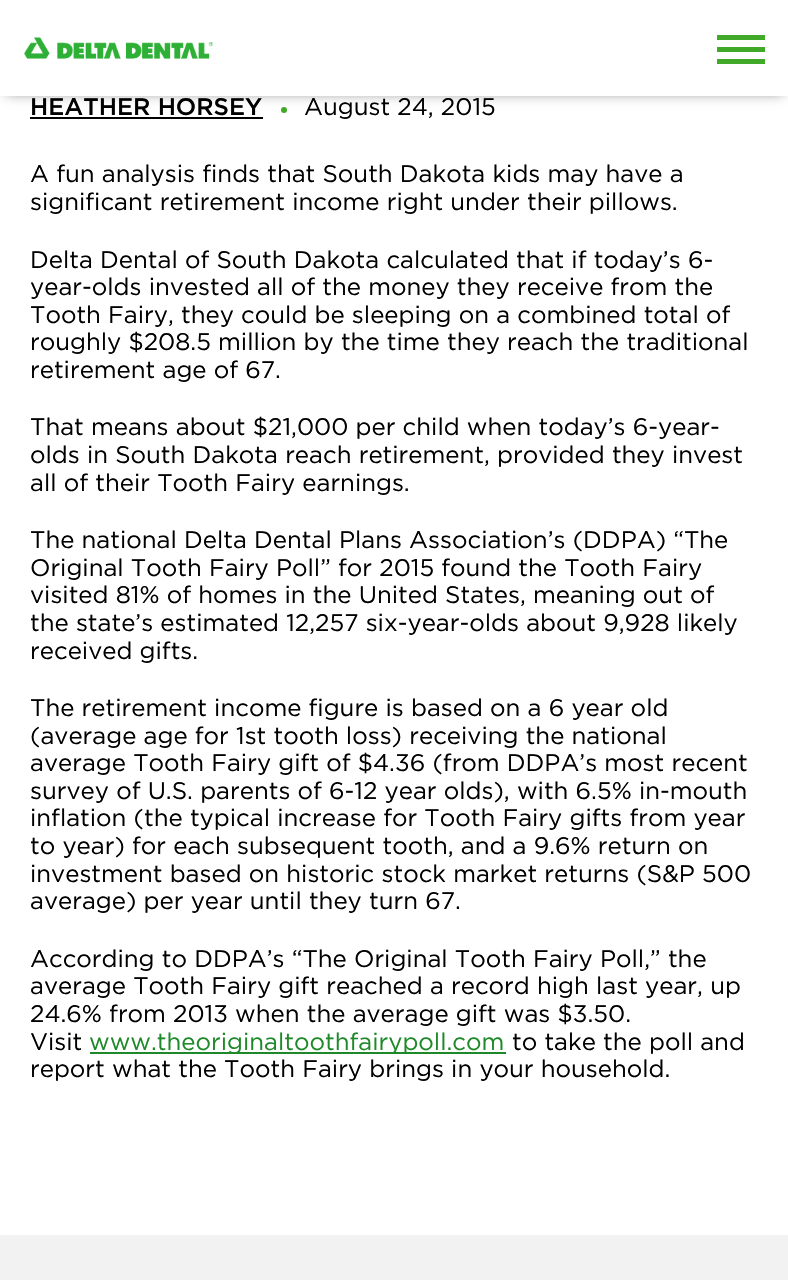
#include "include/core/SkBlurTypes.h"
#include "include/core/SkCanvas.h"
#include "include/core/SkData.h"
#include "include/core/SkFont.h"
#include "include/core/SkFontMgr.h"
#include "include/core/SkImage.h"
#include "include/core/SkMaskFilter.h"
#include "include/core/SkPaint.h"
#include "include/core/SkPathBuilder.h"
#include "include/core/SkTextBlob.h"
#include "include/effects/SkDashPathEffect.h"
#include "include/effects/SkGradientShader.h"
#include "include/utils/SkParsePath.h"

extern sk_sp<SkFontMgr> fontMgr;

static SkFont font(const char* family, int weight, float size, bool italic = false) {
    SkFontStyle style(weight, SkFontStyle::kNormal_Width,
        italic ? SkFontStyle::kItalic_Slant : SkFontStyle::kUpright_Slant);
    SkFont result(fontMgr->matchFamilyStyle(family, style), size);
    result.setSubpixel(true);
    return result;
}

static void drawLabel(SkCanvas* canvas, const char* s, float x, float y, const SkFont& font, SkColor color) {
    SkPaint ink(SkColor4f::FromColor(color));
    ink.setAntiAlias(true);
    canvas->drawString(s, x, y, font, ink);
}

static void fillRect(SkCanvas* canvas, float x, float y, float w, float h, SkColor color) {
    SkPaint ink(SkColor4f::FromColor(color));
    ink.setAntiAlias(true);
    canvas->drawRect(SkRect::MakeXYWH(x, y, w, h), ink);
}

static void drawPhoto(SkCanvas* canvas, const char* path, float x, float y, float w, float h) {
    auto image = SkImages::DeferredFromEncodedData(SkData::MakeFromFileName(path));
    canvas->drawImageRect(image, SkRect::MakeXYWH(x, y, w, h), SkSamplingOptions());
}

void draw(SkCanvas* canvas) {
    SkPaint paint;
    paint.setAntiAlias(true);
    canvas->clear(0xFFFFFFFF);
    paint.setColor(0xFF41A928);
    canvas->drawCircle(284, 110, 3, paint);
    paint.setColor(0x80000000);
    paint.setMaskFilter(SkMaskFilter::MakeBlur(kNormal_SkBlurStyle, 6));
    canvas->drawRect(SkRect::MakeXYWH(6, 9, 777, 84), paint);
    paint.setMaskFilter(nullptr);
    fillRect(canvas, 0, 0, 788, 96, 0xFFFFFFFF);
    drawPhoto(canvas, "assets/img1.png", 24, 37, 189, 22);
    fillRect(canvas, 717, 35, 48, 5, 0xFF41A928);
    fillRect(canvas, 717, 47, 48, 5, 0xFF41A928);
    fillRect(canvas, 717, 59, 48, 5, 0xFF41A928);
    SkFont font1 = font("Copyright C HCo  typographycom", 300, 24);
    drawLabel(canvas, "HEATHER HORSEY", 30, 115, font1, 0xFF000000);
    fillRect(canvas, 30, 117, 233, 2, 0xFF000000);
    SkFont font2 = font("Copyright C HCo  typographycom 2", 300, 24);
    drawLabel(canvas, "August 24, 2015", 304, 115, font2, 0xFF000000);
    drawLabel(canvas, "A fun analysis finds that South Dakota kids may have a", 30, 182, font2, 0xFF000000);
    drawLabel(canvas, "significant retirement income right under their pillows.", 30, 210, font2, 0xFF000000);
    drawLabel(canvas, "Delta Dental of South Dakota calculated that if today’s 6-", 30, 268, font2, 0xFF000000);
    drawLabel(canvas, "year-olds invested all of the money they receive from the", 30, 295, font2, 0xFF000000);
    drawLabel(canvas, "Tooth Fairy, they could be sleeping on a combined total of", 30, 323, font2, 0xFF000000);
    drawLabel(canvas, "roughly $208.5 million by the time they reach the traditional", 30, 350, font2, 0xFF000000);
    drawLabel(canvas, "retirement age of 67.", 30, 378, font2, 0xFF000000);
    drawLabel(canvas, "That means about $21,000 per child when today’s 6-year-", 30, 435, font2, 0xFF000000);
    drawLabel(canvas, "olds in South Dakota reach retirement, provided they invest", 30, 463, font2, 0xFF000000);
    drawLabel(canvas, "all of their Tooth Fairy earnings.", 30, 491, font2, 0xFF000000);
    drawLabel(canvas, "The national Delta Dental Plans Association’s (DDPA) “The", 30, 548, font2, 0xFF000000);
    drawLabel(canvas, "Original Tooth Fairy Poll” for 2015 found the Tooth Fairy", 30, 576, font2, 0xFF000000);
    drawLabel(canvas, "visited 81% of homes in the United States, meaning out of", 30, 603, font2, 0xFF000000);
    drawLabel(canvas, "the state’s estimated 12,257 six-year-olds about 9,928 likely", 30, 631, font2, 0xFF000000);
    drawLabel(canvas, "received gifts.", 30, 659, font2, 0xFF000000);
    drawLabel(canvas, "The retirement income figure is based on a 6 year old", 30, 716, font2, 0xFF000000);
    drawLabel(canvas, "(average age for 1st tooth loss) receiving the national", 30, 744, font2, 0xFF000000);
    drawLabel(canvas, "average Tooth Fairy gift of $4.36 (from DDPA’s most recent", 30, 771, font2, 0xFF000000);
    drawLabel(canvas, "survey of U.S. parents of 6-12 year olds), with 6.5% in-mouth", 30, 799, font2, 0xFF000000);
    drawLabel(canvas, "inflation (the typical increase for Tooth Fairy gifts from year", 30, 826, font2, 0xFF000000);
    drawLabel(canvas, "to year) for each subsequent tooth, and a 9.6% return on", 30, 854, font2, 0xFF000000);
    drawLabel(canvas, "investment based on historic stock market returns (S&P 500", 30, 882, font2, 0xFF000000);
    drawLabel(canvas, "average) per year until they turn 67.", 30, 909, font2, 0xFF000000);
    drawLabel(canvas, "According to DDPA’s “The Original Tooth Fairy Poll,” the", 30, 967, font2, 0xFF000000);
    drawLabel(canvas, "average Tooth Fairy gift reached a record high last year, up", 30, 994, font2, 0xFF000000);
    drawLabel(canvas, "24.6% from 2013 when the average gift was $3.50.", 30, 1022, font2, 0xFF000000);
    drawLabel(canvas, "Visit", 30, 1050, font2, 0xFF000000);
    fillRect(canvas, 90, 1052, 416, 2, 0xFF1D8928);
    drawLabel(canvas, "www.theoriginaltoothfairypoll.com", 89, 1050, font2, 0xFF1D8928);
    drawLabel(canvas, "to take the poll and", 512, 1050, font2, 0xFF000000);
    drawLabel(canvas, "report what the Tooth Fairy brings in your household.", 30, 1077, font2, 0xFF000000);
    fillRect(canvas, 0, 1235, 788, 45, 0xFFF2F2F2);
}
